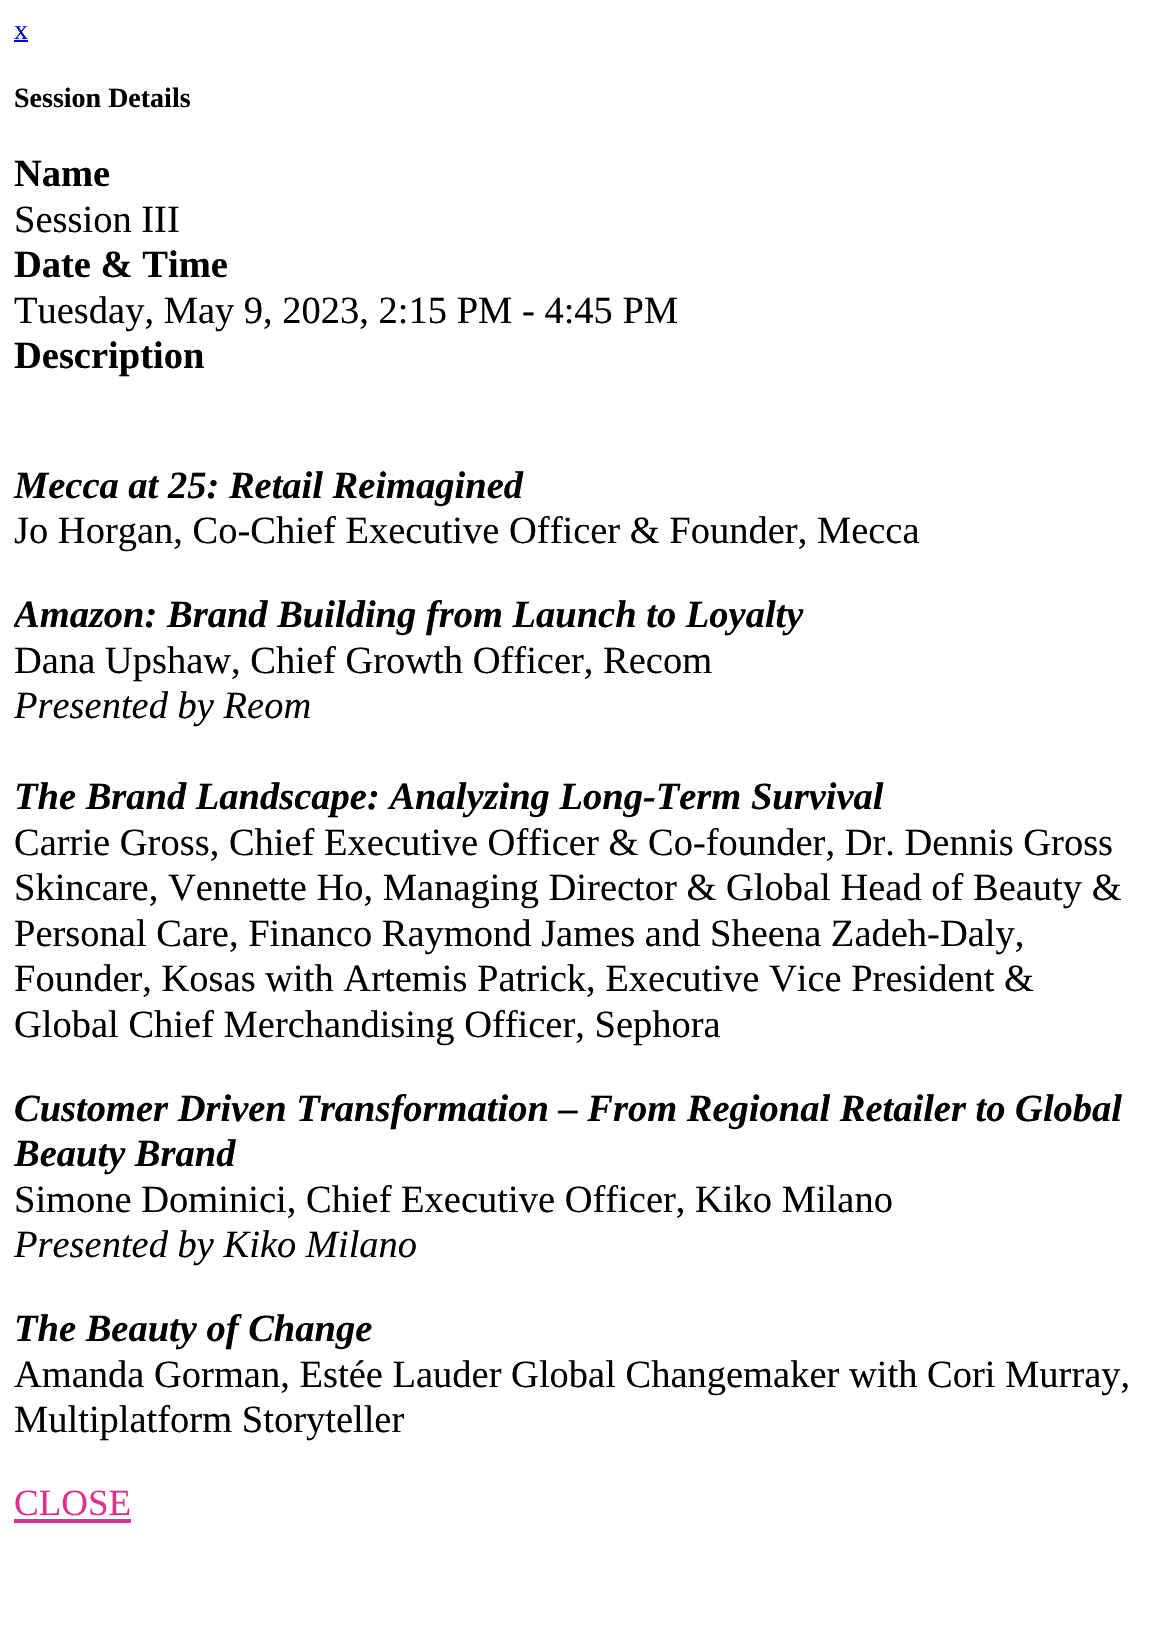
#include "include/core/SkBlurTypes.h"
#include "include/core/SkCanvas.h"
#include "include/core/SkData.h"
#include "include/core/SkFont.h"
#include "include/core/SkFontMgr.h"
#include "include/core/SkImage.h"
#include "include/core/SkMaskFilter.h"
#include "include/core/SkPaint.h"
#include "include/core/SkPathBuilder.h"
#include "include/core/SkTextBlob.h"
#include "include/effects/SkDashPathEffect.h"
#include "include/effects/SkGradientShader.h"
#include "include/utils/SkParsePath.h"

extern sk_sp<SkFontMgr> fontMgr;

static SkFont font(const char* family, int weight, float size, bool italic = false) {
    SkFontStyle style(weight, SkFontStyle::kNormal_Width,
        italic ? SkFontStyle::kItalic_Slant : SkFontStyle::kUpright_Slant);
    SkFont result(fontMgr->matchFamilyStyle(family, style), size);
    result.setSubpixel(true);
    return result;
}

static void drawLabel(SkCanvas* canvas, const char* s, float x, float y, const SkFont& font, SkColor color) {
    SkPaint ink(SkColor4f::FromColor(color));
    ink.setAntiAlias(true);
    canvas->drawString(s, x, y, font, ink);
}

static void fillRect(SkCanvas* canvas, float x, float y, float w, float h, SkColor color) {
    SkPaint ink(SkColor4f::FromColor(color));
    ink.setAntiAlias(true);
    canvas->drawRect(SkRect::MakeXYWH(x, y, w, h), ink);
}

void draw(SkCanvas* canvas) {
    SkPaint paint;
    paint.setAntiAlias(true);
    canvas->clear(0xFFFFFFFF);
    SkFont font1 = font("Liberation Serif", 400, 28);
    drawLabel(canvas, "x", 14, 39, font1, 0xFF0000EE);
    fillRect(canvas, 14, 40, 14, 2, 0xFF0000EE);
    SkFont font2 = font("Liberation Serif", 700, 28);
    drawLabel(canvas, "Session Details", 14, 107, font2, 0xFF000000);
    SkFont font3 = font("Liberation Serif", 700, 38.5f);
    drawLabel(canvas, "Name", 14, 186, font3, 0xFF000000);
    SkFont font4 = font("Liberation Serif", 400, 38.5f);
    drawLabel(canvas, "Session III", 14, 232, font4, 0xFF000000);
    drawLabel(canvas, "Date & Time", 14, 277, font3, 0xFF000000);
    drawLabel(canvas, "Tuesday, May 9, 2023, 2:15 PM - 4:45 PM", 14, 323, font4, 0xFF000000);
    drawLabel(canvas, "Description", 14, 368, font3, 0xFF000000);
    SkFont font5 = font("Liberation Serif", 700, 38.5f, true);
    drawLabel(canvas, "Mecca at 25: Retail Reimagined", 14, 498, font5, 0xFF000000);
    drawLabel(canvas, "Jo Horgan, Co-Chief Executive Officer & Founder, Mecca", 14, 543, font4, 0xFF000000);
    canvas->save();
    canvas->clipRect(SkRect::MakeXYWH(14, 14, 1124, 1512));
    drawLabel(canvas, "Amazon: Brand Building from Launch to Loyalty", 14, 627, font5, 0xFF000000);
    canvas->restore();
    drawLabel(canvas, "Dana Upshaw, Chief Growth Officer, Recom", 14, 673, font4, 0xFF000000);
    SkFont font6 = font("Liberation Serif", 400, 38.5f, true);
    drawLabel(canvas, "Presented by Reom", 14, 718, font6, 0xFF000000);
    drawLabel(canvas, "The Brand Landscape: Analyzing Long-Term Survival", 14, 809, font5, 0xFF000000);
    drawLabel(canvas, "Carrie Gross, Chief Executive Officer & Co-founder, Dr. Dennis Gross", 14, 855, font4, 0xFF000000);
    drawLabel(canvas, "Skincare, Vennette Ho, Managing Director & Global Head of Beauty &", 14, 900, font4, 0xFF000000);
    drawLabel(canvas, "Personal Care, Financo Raymond James and Sheena Zadeh-Daly,", 14, 946, font4, 0xFF000000);
    drawLabel(canvas, "Founder, Kosas with Artemis Patrick, Executive Vice President &", 14, 991, font4, 0xFF000000);
    drawLabel(canvas, "Global Chief Merchandising Officer, Sephora", 14, 1037, font4, 0xFF000000);
    drawLabel(canvas, "Customer Driven Transformation – From Regional Retailer to Global", 14, 1121, font5, 0xFF000000);
    drawLabel(canvas, "Beauty Brand", 14, 1166, font5, 0xFF000000);
    drawLabel(canvas, "Simone Dominici, Chief Executive Officer, Kiko Milano", 14, 1212, font4, 0xFF000000);
    drawLabel(canvas, "Presented by Kiko Milano", 14, 1257, font6, 0xFF000000);
    drawLabel(canvas, "The Beauty of Change", 14, 1341, font5, 0xFF000000);
    drawLabel(canvas, "Amanda Gorman, Estée Lauder Global Changemaker with Cori Murray,", 14, 1387, font4, 0xFF000000);
    drawLabel(canvas, "Multiplatform Storyteller", 14, 1432, font4, 0xFF000000);
    SkFont font7 = font("Liberation Serif", 400, 37);
    drawLabel(canvas, "CLOSE", 14, 1515, font7, 0xFFDF328C);
    fillRect(canvas, 14, 1519, 117, 4, 0xFFDF328C);
}
